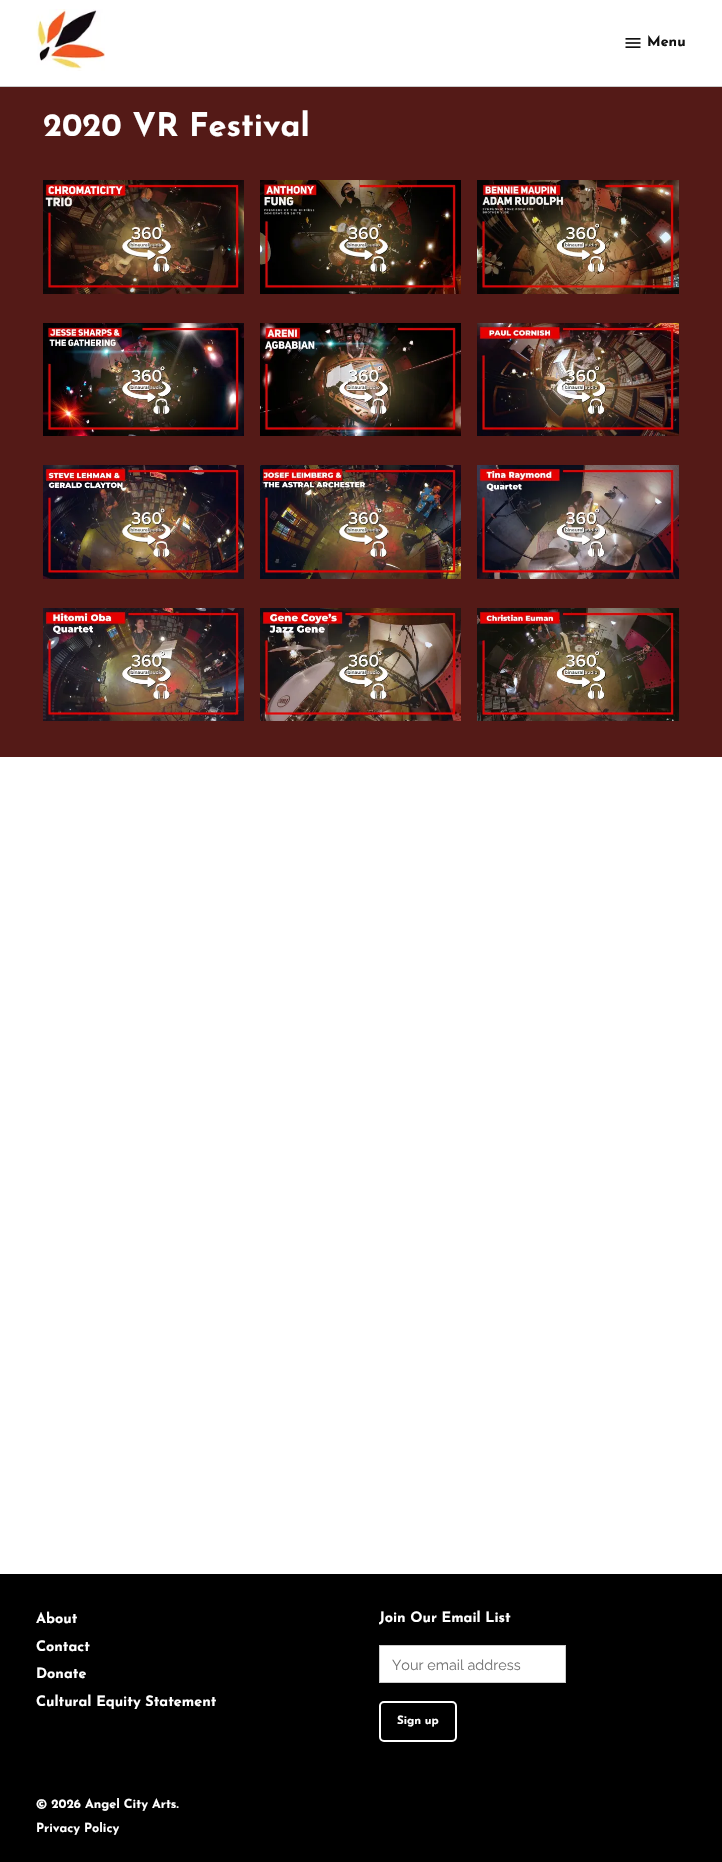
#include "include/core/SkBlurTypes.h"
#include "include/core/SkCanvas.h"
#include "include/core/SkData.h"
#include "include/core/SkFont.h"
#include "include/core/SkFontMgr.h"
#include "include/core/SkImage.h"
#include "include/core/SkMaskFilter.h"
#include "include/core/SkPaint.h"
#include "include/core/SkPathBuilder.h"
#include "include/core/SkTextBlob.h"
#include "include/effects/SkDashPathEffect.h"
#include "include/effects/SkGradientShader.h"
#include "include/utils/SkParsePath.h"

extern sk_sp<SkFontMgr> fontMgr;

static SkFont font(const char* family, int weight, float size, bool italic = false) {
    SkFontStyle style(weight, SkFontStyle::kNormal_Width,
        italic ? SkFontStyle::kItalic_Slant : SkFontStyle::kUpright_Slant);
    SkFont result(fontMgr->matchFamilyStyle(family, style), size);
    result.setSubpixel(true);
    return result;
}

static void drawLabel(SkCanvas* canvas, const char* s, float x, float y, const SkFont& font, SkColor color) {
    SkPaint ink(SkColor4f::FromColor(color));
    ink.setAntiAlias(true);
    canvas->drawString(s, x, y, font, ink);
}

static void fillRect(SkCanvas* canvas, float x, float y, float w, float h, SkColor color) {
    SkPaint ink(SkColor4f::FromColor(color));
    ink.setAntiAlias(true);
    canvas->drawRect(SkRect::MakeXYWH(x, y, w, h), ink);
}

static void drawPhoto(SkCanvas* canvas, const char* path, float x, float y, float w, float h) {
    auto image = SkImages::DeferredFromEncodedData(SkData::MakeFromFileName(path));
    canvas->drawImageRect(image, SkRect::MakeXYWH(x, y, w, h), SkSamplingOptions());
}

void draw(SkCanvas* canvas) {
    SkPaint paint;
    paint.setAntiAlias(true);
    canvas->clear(0xFFFFFFFF);
    fillRect(canvas, 0, 86, 722, 1, 0xFFCCCCCC);
    drawPhoto(canvas, "assets/img1.png", 36, 9, 69, 62);
    drawPhoto(canvas, "assets/img2.png", 625, 38, 16, 10);
    SkFont font1 = font("Josefin Sans", 100, 14.4f);
    drawLabel(canvas, "Menu", 647, 46, font1, 0xFF111111);
    fillRect(canvas, 0, 87, 722, 670, 0xFF541A17);
    SkFont font2 = font("Josefin Sans", 100, 32.5f);
    drawLabel(canvas, "2020 VR Festival", 43, 136, font2, 0xFFFFFFFF);
    drawPhoto(canvas, "assets/img3.png", 43, 180, 201, 114);
    drawPhoto(canvas, "assets/img4.png", 260, 180, 201, 114);
    drawPhoto(canvas, "assets/img5.png", 477, 180, 202, 114);
    drawPhoto(canvas, "assets/img6.png", 43, 323, 201, 113);
    drawPhoto(canvas, "assets/img7.png", 260, 323, 201, 113);
    drawPhoto(canvas, "assets/img8.png", 477, 323, 202, 113);
    drawPhoto(canvas, "assets/img9.png", 43, 465, 201, 114);
    drawPhoto(canvas, "assets/img10.png", 260, 465, 201, 114);
    drawPhoto(canvas, "assets/img11.png", 477, 465, 202, 114);
    drawPhoto(canvas, "assets/img12.png", 43, 608, 201, 113);
    drawPhoto(canvas, "assets/img13.png", 260, 608, 201, 113);
    drawPhoto(canvas, "assets/img14.png", 477, 608, 202, 113);
    fillRect(canvas, 0, 1574, 722, 288, 0xFF000000);
    drawLabel(canvas, "About", 36, 1623, font1, 0xFFFFFFFF);
    drawLabel(canvas, "Contact", 36, 1651, font1, 0xFFFFFFFF);
    drawLabel(canvas, "Donate", 36, 1678, font1, 0xFFFFFFFF);
    drawLabel(canvas, "Cultural Equity Statement", 36, 1706, font1, 0xFFFFFFFF);
    drawLabel(canvas, "Join Our Email List", 379, 1622, font1, 0xFFFFFFFF);
    paint.setColor(0xFFFFFFFF);
    canvas->drawRect(SkRect::MakeXYWH(379.5f, 1645.5f, 186, 37), paint);
    paint.setStroke(true);
    paint.setStrokeWidth(1);
    paint.setColor(0xFFCCCCCC);
    canvas->drawRect(SkRect::MakeXYWH(379.5f, 1645.5f, 186, 37), paint);
    SkFont font3 = font("Raleway", 100, 14.4f);
    drawLabel(canvas, "Your email address", 392, 1670, font3, 0xFF757575);
    paint.setStrokeWidth(2);
    paint.setColor(0xFFFFFFFF);
    canvas->drawRoundRect(SkRect::MakeXYWH(380, 1702, 76, 39), 4, 4, paint);
    SkFont font4 = font("Josefin Sans", 100, 11.5f);
    drawLabel(canvas, "Sign up", 397, 1724, font4, 0xFFFFFFFF);
    SkFont font5 = font("Josefin Sans", 100, 12.6f);
    drawLabel(canvas, "© 2026 Angel City Arts.", 36, 1808, font5, 0xFFFFFFFF);
    drawLabel(canvas, "Privacy Policy", 36, 1832, font5, 0xFFFFFFFF);
}
